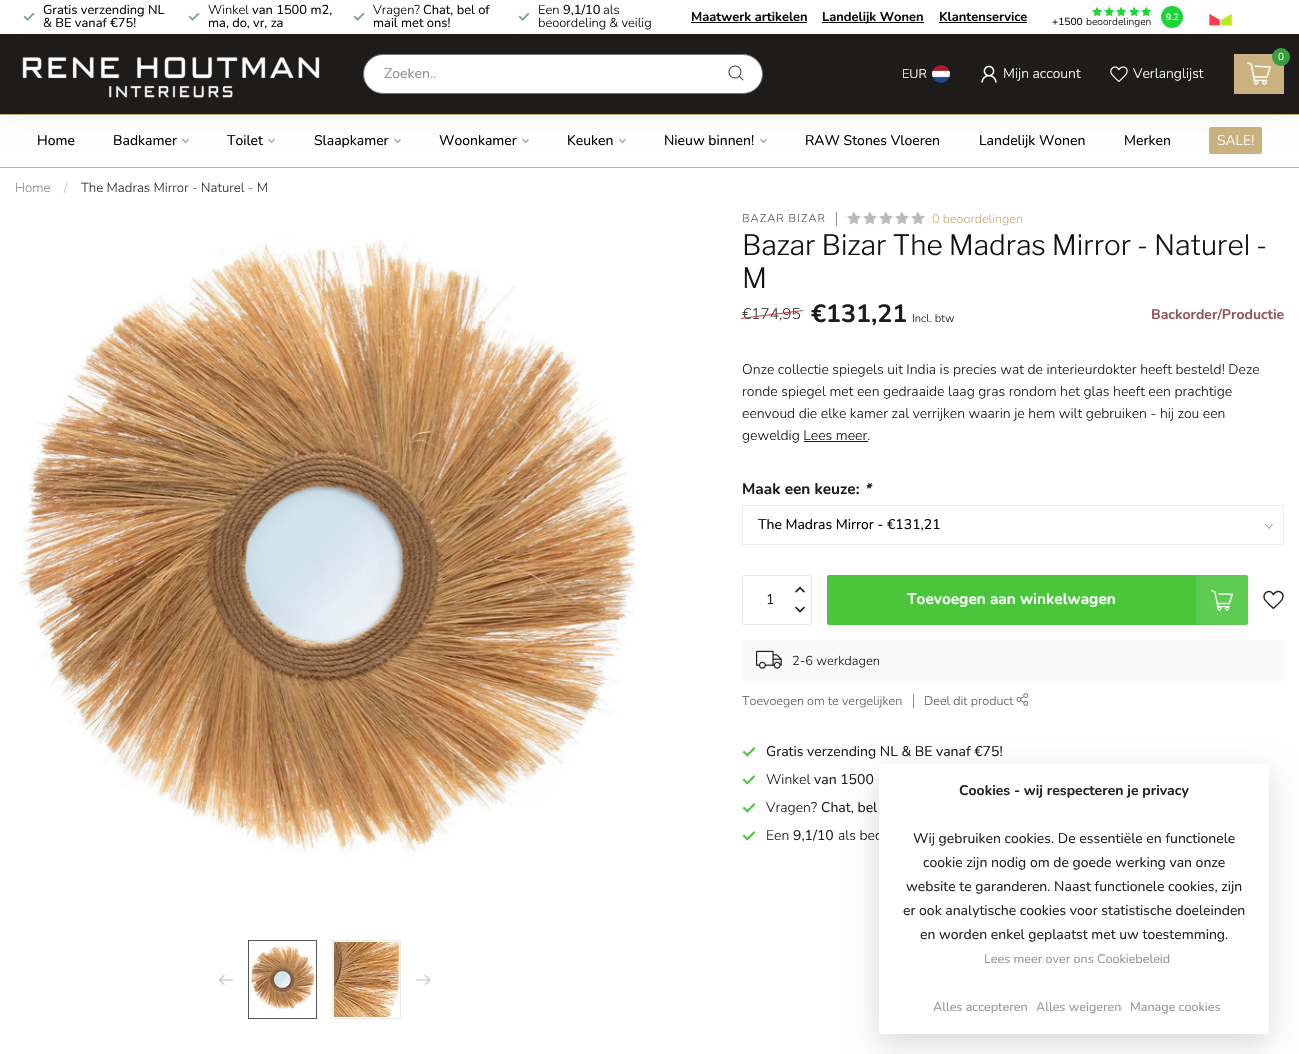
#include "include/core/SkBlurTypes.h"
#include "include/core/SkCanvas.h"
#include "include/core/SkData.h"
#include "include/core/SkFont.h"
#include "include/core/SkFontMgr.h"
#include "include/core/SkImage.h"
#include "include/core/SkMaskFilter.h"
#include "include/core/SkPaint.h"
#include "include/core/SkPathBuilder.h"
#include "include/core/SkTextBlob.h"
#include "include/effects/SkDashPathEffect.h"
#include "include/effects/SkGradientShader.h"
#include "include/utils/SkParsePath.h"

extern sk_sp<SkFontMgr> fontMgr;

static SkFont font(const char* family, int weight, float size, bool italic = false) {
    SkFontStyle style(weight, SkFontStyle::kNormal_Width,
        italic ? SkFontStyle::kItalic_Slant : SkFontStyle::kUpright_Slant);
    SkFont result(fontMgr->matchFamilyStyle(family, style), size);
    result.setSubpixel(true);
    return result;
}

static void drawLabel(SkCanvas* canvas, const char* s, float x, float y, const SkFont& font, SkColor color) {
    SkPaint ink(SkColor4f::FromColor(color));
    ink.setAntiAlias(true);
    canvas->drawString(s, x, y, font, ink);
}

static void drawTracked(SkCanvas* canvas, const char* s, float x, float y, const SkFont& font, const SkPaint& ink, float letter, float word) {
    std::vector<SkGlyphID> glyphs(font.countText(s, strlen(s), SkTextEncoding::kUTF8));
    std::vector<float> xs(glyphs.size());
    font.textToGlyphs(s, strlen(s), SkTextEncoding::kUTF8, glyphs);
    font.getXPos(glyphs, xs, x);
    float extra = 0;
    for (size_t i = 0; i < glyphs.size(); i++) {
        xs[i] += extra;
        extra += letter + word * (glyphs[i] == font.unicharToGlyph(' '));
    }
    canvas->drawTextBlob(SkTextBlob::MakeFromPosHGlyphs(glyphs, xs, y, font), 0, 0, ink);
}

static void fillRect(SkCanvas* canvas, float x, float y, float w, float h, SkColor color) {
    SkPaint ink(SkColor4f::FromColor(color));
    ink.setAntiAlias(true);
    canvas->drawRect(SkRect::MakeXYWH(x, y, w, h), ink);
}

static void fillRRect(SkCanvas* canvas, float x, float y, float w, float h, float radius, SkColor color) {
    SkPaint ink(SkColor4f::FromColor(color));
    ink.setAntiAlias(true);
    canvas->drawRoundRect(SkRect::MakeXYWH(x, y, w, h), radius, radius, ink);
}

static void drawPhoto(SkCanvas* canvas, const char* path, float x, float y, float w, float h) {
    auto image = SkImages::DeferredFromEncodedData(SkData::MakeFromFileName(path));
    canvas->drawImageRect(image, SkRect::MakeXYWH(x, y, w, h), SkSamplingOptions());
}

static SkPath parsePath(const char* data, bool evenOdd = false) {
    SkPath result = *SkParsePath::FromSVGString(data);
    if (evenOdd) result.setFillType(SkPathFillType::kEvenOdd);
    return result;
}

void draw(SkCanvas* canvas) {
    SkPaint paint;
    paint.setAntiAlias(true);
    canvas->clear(0xFFFFFFFF);
    fillRect(canvas, 0, 114, 1299, 1, 0xFFC9B27F);
    drawPhoto(canvas, "assets/img10.png", 182, 138, 7, 5);
    drawPhoto(canvas, "assets/img10.png", 268, 138, 7, 5);
    drawPhoto(canvas, "assets/img10.png", 394, 138, 7, 5);
    drawPhoto(canvas, "assets/img10.png", 522, 138, 7, 5);
    drawPhoto(canvas, "assets/img10.png", 619, 138, 7, 5);
    drawPhoto(canvas, "assets/img10.png", 760, 138, 7, 5);
    fillRRect(canvas, 1209, 127, 53, 27, 2, 0xFFC9B27F);
    paint.setColor(0x14000000);
    paint.setMaskFilter(SkMaskFilter::MakeBlur(kNormal_SkBlurStyle, 11));
    canvas->drawRect(SkRect::MakeXYWH(0, 0, 1299, 114), paint);
    paint.setMaskFilter(nullptr);
    fillRect(canvas, 0, 34, 1299, 80, 0xFF1D1C1A);
    fillRect(canvas, 0, 0, 1299, 34, 0xFFFFFFFF);
    drawPhoto(canvas, "assets/img1.png", 23, 12, 12, 9);
    SkFont font1 = font("Nunito", 400, 12.9f);
    drawLabel(canvas, "Gratis verzending NL", 43, 14, font1, 0xFF0A0A0A);
    drawLabel(canvas, "& BE vanaf €75!", 43, 27, font1, 0xFF0A0A0A);
    drawPhoto(canvas, "assets/img1.png", 188, 12, 12, 9);
    SkFont font2 = font("Nunito", 300, 12.9f);
    drawLabel(canvas, "Winkel", 208, 14, font2, 0xFF0A0A0A);
    drawLabel(canvas, "van 1500 m2,", 252, 14, font1, 0xFF0A0A0A);
    drawLabel(canvas, "ma, do, vr, za", 208, 27, font1, 0xFF0A0A0A);
    drawPhoto(canvas, "assets/img1.png", 353, 12, 12, 9);
    drawLabel(canvas, "Vragen?", 373, 14, font2, 0xFF0A0A0A);
    drawLabel(canvas, "Chat, bel of", 423, 14, font1, 0xFF0A0A0A);
    drawLabel(canvas, "mail met ons!", 373, 27, font1, 0xFF0A0A0A);
    drawPhoto(canvas, "assets/img1.png", 518, 12, 12, 9);
    drawLabel(canvas, "Een", 538, 14, font2, 0xFF0A0A0A);
    drawLabel(canvas, "9,1/10", 563, 14, font1, 0xFF0A0A0A);
    drawLabel(canvas, "als", 603, 14, font2, 0xFF0A0A0A);
    drawLabel(canvas, "beoordeling & veilig", 538, 27, font2, 0xFF0A0A0A);
    SkFont font3 = font("Nunito", 700, 12.9f);
    drawLabel(canvas, "Maatwerk artikelen", 691, 21, font3, 0xFF0A0A0A);
    fillRect(canvas, 691, 22, 116, 1, 0xFF0A0A0A);
    fillRect(canvas, 822, 22, 102, 1, 0xFF0A0A0A);
    drawLabel(canvas, "Landelijk Wonen", 822, 21, font3, 0xFF0A0A0A);
    drawLabel(canvas, "Klantenservice", 939, 21, font3, 0xFF0A0A0A);
    fillRect(canvas, 939, 22, 88, 1, 0xFF0A0A0A);
    drawPhoto(canvas, "assets/img2.png", 1092, 6, 11, 11);
    drawPhoto(canvas, "assets/img2.png", 1104, 6, 11, 11);
    drawPhoto(canvas, "assets/img2.png", 1116, 6, 11, 11);
    drawPhoto(canvas, "assets/img2.png", 1129, 6, 11, 11);
    drawPhoto(canvas, "assets/img2.png", 1141, 6, 11, 11);
    SkFont font4 = font("Nunito", 400, 10.25f);
    drawLabel(canvas, "+1500", 1052, 25, font4, 0xFF0A0A0A);
    SkFont font5 = font("Nunito", 300, 10.25f);
    drawLabel(canvas, "beoordelingen", 1086, 25, font5, 0xFF0A0A0A);
    paint.setColor(0xFF1CD635);
    canvas->drawCircle(1172, 17, 11, paint);
    SkFont font6 = font("Nunito", 400, 9);
    drawLabel(canvas, "9.2", 1166, 20, font6, 0xFFFFFFFF);
    drawPhoto(canvas, "assets/img3.png", 1209, 13, 23, 13);
    drawPhoto(canvas, "assets/img4.png", 22, 56, 298, 42);
    paint.setColor(0xFFFFFFFF);
    canvas->drawRoundRect(SkRect::MakeXYWH(363.5f, 54.5f, 399, 39), 19.5f, 19.5f, paint);
    paint.setStroke(true);
    paint.setStrokeWidth(1);
    paint.setColor(0xFF757575);
    canvas->drawRoundRect(SkRect::MakeXYWH(363.5f, 54.5f, 399, 39), 19.5f, 19.5f, paint);
    SkFont font7 = font("Nunito", 400, 14);
    drawLabel(canvas, "Zoeken..", 384, 78, font7, 0xFF8E8E8D);
    drawPhoto(canvas, "assets/img5.png", 728, 65, 16, 16);
    fillRect(canvas, 1234, 54, 50, 40, 0xFFC9B27F);
    paint.setStroke(false);
    paint.setColor(0xFF389E3C);
    canvas->drawCircle(1281, 57, 9, paint);
    SkFont font8 = font("Nunito", 300, 10);
    drawLabel(canvas, "0", 1278, 60, font8, 0xFFFFFFFF);
    drawPhoto(canvas, "assets/img6.png", 1247, 62, 24, 23);
    SkFont font9 = font("Nunito", 300, 12.6f);
    drawLabel(canvas, "EUR", 902, 78, font9, 0xFFFFFFFF);
    drawPhoto(canvas, "assets/img7.png", 932, 65, 18, 18);
    drawPhoto(canvas, "assets/img8.png", 981, 65, 16, 18);
    SkFont font10 = font("Nunito", 300, 14);
    drawLabel(canvas, "Mijn account", 1003, 78, font10, 0xFFFFFFFF);
    drawPhoto(canvas, "assets/img9.png", 1110, 66, 18, 16);
    drawLabel(canvas, "Verlanglijst", 1133, 78, font10, 0xFFFFFFFF);
    fillRect(canvas, 0, 167, 1299, 1, 0xFFC9B27F);
    drawLabel(canvas, "Home", 37, 145, font7, 0xFF000000);
    drawLabel(canvas, "Badkamer", 113, 145, font7, 0xFF000000);
    drawLabel(canvas, "Toilet", 227, 145, font7, 0xFF000000);
    drawLabel(canvas, "Slaapkamer", 314, 145, font7, 0xFF000000);
    drawLabel(canvas, "Woonkamer", 439, 145, font7, 0xFF000000);
    drawLabel(canvas, "Keuken", 567, 145, font7, 0xFF000000);
    drawLabel(canvas, "Nieuw binnen!", 664, 145, font7, 0xFF000000);
    drawLabel(canvas, "RAW Stones Vloeren", 805, 145, font7, 0xFF000000);
    drawLabel(canvas, "Landelijk Wonen", 979, 145, font7, 0xFF000000);
    drawLabel(canvas, "Merken", 1124, 145, font7, 0xFF000000);
    drawLabel(canvas, "SALE!", 1217, 145, font10, 0xFFFFFFFF);
    SkFont font11 = font("Nunito", 300, 13.25f);
    drawLabel(canvas, "Home", 15, 192, font11, 0xFF8E8E8D);
    drawLabel(canvas, "/", 64, 192, font11, 0xFFBBBBBA);
    drawLabel(canvas, "The Madras Mirror - Naturel - M", 81, 192, font11, 0xFF343331);
    drawPhoto(canvas, "assets/img11.png", 15, 238, 620, 619);
    drawPhoto(canvas, "assets/img12.png", 219, 975, 14, 10);
    paint.setStroke(true);
    paint.setColor(0xFF565656);
    canvas->drawRect(SkRect::MakeXYWH(248.5f, 940.5f, 68, 78), paint);
    drawPhoto(canvas, "assets/img13.png", 250, 942, 65, 72);
    paint.setColor(0xFFECECEC);
    canvas->drawRect(SkRect::MakeXYWH(332.5f, 940.5f, 68, 78), paint);
    drawPhoto(canvas, "assets/img14.png", 334, 942, 65, 75);
    drawPhoto(canvas, "assets/img15.png", 416, 975, 15, 10);
    SkFont font12 = font("Nunito", 300, 11.25f);
    paint.setStroke(false);
    paint.setColor(0xFF61605F);
    drawTracked(canvas, "BAZAR BIZAR", 742, 222, font12, paint, 1, 0);
    fillRect(canvas, 836, 212, 1, 14, 0xFF8F8F8F);
    drawPhoto(canvas, "assets/img16.png", 847, 211, 14, 14);
    drawPhoto(canvas, "assets/img16.png", 863, 211, 14, 14);
    drawPhoto(canvas, "assets/img16.png", 879, 211, 14, 14);
    drawPhoto(canvas, "assets/img16.png", 895, 211, 14, 14);
    drawPhoto(canvas, "assets/img16.png", 911, 211, 14, 14);
    drawLabel(canvas, "0 beoordelingen", 932, 223, font9, 0xFFC9B27F);
    SkFont font13 = font("Libre Franklin", 300, 28);
    drawLabel(canvas, "Bazar Bizar The Madras Mirror - Naturel -", 742, 255, font13, 0xFF131313);
    drawLabel(canvas, "M", 742, 288, font13, 0xFF131313);
    SkFont font14 = font("Nunito", 300, 15.4f);
    drawLabel(canvas, "€174,95", 742, 319, font14, 0xFF343331);
    paint.setColor(0xFFC93535);
    canvas->drawPath(parsePath("M741 318L803 310V311L741 319Z"), paint);
    SkFont font15 = font("Nunito", 700, 25);
    drawLabel(canvas, "€131,21", 811, 322, font15, 0xFF1D1C1A);
    drawLabel(canvas, "Incl. btw", 912, 322, font12, 0xFF1D1C1A);
    SkFont font16 = font("Nunito", 700, 14);
    drawLabel(canvas, "Backorder/Productie", 1151, 319, font16, 0xFF905659);
    drawLabel(canvas, "Onze collectie spiegels uit India is precies wat de interieurdokter heeft besteld! Deze", 742, 374, font10, 0xFF1D1C1A);
    drawLabel(canvas, "ronde spiegel met een gedraaide laag gras rondom het glas heeft een prachtige", 742, 396, font10, 0xFF1D1C1A);
    drawLabel(canvas, "eenvoud die elke kamer zal verrijken waarin je hem wilt gebruiken - hij zou een", 742, 418, font10, 0xFF1D1C1A);
    drawLabel(canvas, "geweldig Lees meer.", 742, 440, font10, 0xFF1D1C1A);
    fillRect(canvas, 804, 441, 64, 1, 0xFF1D1C1A);
    SkFont font17 = font("Nunito", 700, 15.4f);
    drawLabel(canvas, "Maak een keuze:", 742, 494, font17, 0xFF1D1C1A);
    SkFont font18 = font("Nunito", 700, 15.4f, true);
    drawLabel(canvas, "*", 864, 494, font18, 0xFF1D1C1A);
    paint.setStroke(true);
    paint.setStrokeWidth(0.7f);
    paint.setColor(0xFF595959);
    canvas->drawPath(parsePath("M1272.5 524L1269 528.5L1265.5 524"), paint);
    paint.setStrokeWidth(1);
    paint.setColor(0xFFEEEEEE);
    canvas->drawRect(SkRect::MakeXYWH(742.5f, 505.5f, 541, 39), paint);
    drawLabel(canvas, "The Madras Mirror - €131,21", 758, 529, font7, 0xFF000000);
    paint.setColor(0xFFE8E8E8);
    canvas->drawRoundRect(SkRect::MakeXYWH(742.5f, 575.5f, 69, 49), 1.5f, 1.5f, paint);
    drawPhoto(canvas, "assets/img17.png", 795, 586, 10, 7);
    drawLabel(canvas, "1", 766, 604, font7, 0xFF1D1C1A);
    drawPhoto(canvas, "assets/img18.png", 795, 606, 10, 7);
    fillRRect(canvas, 827, 575, 421, 50, 2, 0xFF4BC63C);
    drawLabel(canvas, "Toevoegen aan winkelwagen", 907, 604, font17, 0xFFFFFFFF);
    drawPhoto(canvas, "assets/img19.png", 1211, 590, 22, 21);
    fillRect(canvas, 1196, 575, 52, 50, 0x1AFFFFFF);
    drawPhoto(canvas, "assets/img20.png", 1263, 590, 21, 19);
    fillRRect(canvas, 742, 640, 542, 41, 2, 0xFFFAFAFA);
    drawPhoto(canvas, "assets/img21.png", 756, 650, 26, 19);
    drawLabel(canvas, "2-6 werkdagen", 792, 665, font2, 0xFF1D1C1A);
    drawLabel(canvas, "Toevoegen om te vergelijken", 742, 705, font9, 0xFF61605F);
    fillRect(canvas, 913, 694, 1, 14, 0xFF8F8F8F);
    drawLabel(canvas, "Deel dit product", 924, 705, font9, 0xFF61605F);
    drawPhoto(canvas, "assets/img22.png", 1016, 693, 13, 13);
    drawPhoto(canvas, "assets/img23.png", 742, 747, 14, 10);
    drawLabel(canvas, "Gratis verzending NL & BE vanaf €75!", 766, 756, font7, 0xFF1D1C1A);
    drawPhoto(canvas, "assets/img23.png", 742, 775, 14, 10);
    drawLabel(canvas, "Winkel", 766, 784, font10, 0xFF1D1C1A);
    drawLabel(canvas, "van 1500", 814, 784, font7, 0xFF1D1C1A);
    drawPhoto(canvas, "assets/img23.png", 742, 803, 14, 10);
    drawLabel(canvas, "Vragen?", 766, 812, font10, 0xFF1D1C1A);
    drawLabel(canvas, "Chat, bel", 821, 812, font7, 0xFF1D1C1A);
    drawPhoto(canvas, "assets/img23.png", 742, 831, 14, 10);
    drawLabel(canvas, "Een", 766, 840, font10, 0xFF1D1C1A);
    drawLabel(canvas, "9,1/10", 793, 840, font7, 0xFF1D1C1A);
    drawLabel(canvas, "als beo", 838, 840, font10, 0xFF1D1C1A);
    paint.setStroke(false);
    paint.setColor(0x26000000);
    paint.setMaskFilter(SkMaskFilter::MakeBlur(kNormal_SkBlurStyle, 15));
    canvas->drawRoundRect(SkRect::MakeXYWH(879, 774, 390, 270), 2, 2, paint);
    paint.setMaskFilter(nullptr);
    fillRRect(canvas, 879, 764, 390, 270, 2, 0xFFFFFFFF);
    drawLabel(canvas, "Cookies - wij respecteren je privacy", 959, 795, font16, 0xFF222222);
    drawLabel(canvas, "Wij gebruiken cookies. De essentiële en functionele", 913, 843, font7, 0xFF222222);
    drawLabel(canvas, "cookie zijn nodig om de goede werking van onze", 923, 867, font7, 0xFF222222);
    drawLabel(canvas, "website te garanderen. Naast functionele cookies, zijn", 906, 891, font7, 0xFF222222);
    drawLabel(canvas, "er ook analytische cookies voor statistische doeleinden", 903, 915, font7, 0xFF222222);
    drawLabel(canvas, "en worden enkel geplaatst met uw toestemming.", 920, 939, font7, 0xFF222222);
    SkFont font19 = font("Nunito", 400, 12.6f);
    drawLabel(canvas, "Lees meer over ons Cookiebeleid", 984, 963, font19, 0xFF949494);
    drawLabel(canvas, "Alles accepteren", 933, 1011, font19, 0xFF949494);
    drawLabel(canvas, "Alles weigeren", 1036, 1011, font19, 0xFF949494);
    drawLabel(canvas, "Manage cookies", 1130, 1011, font19, 0xFF949494);
}
